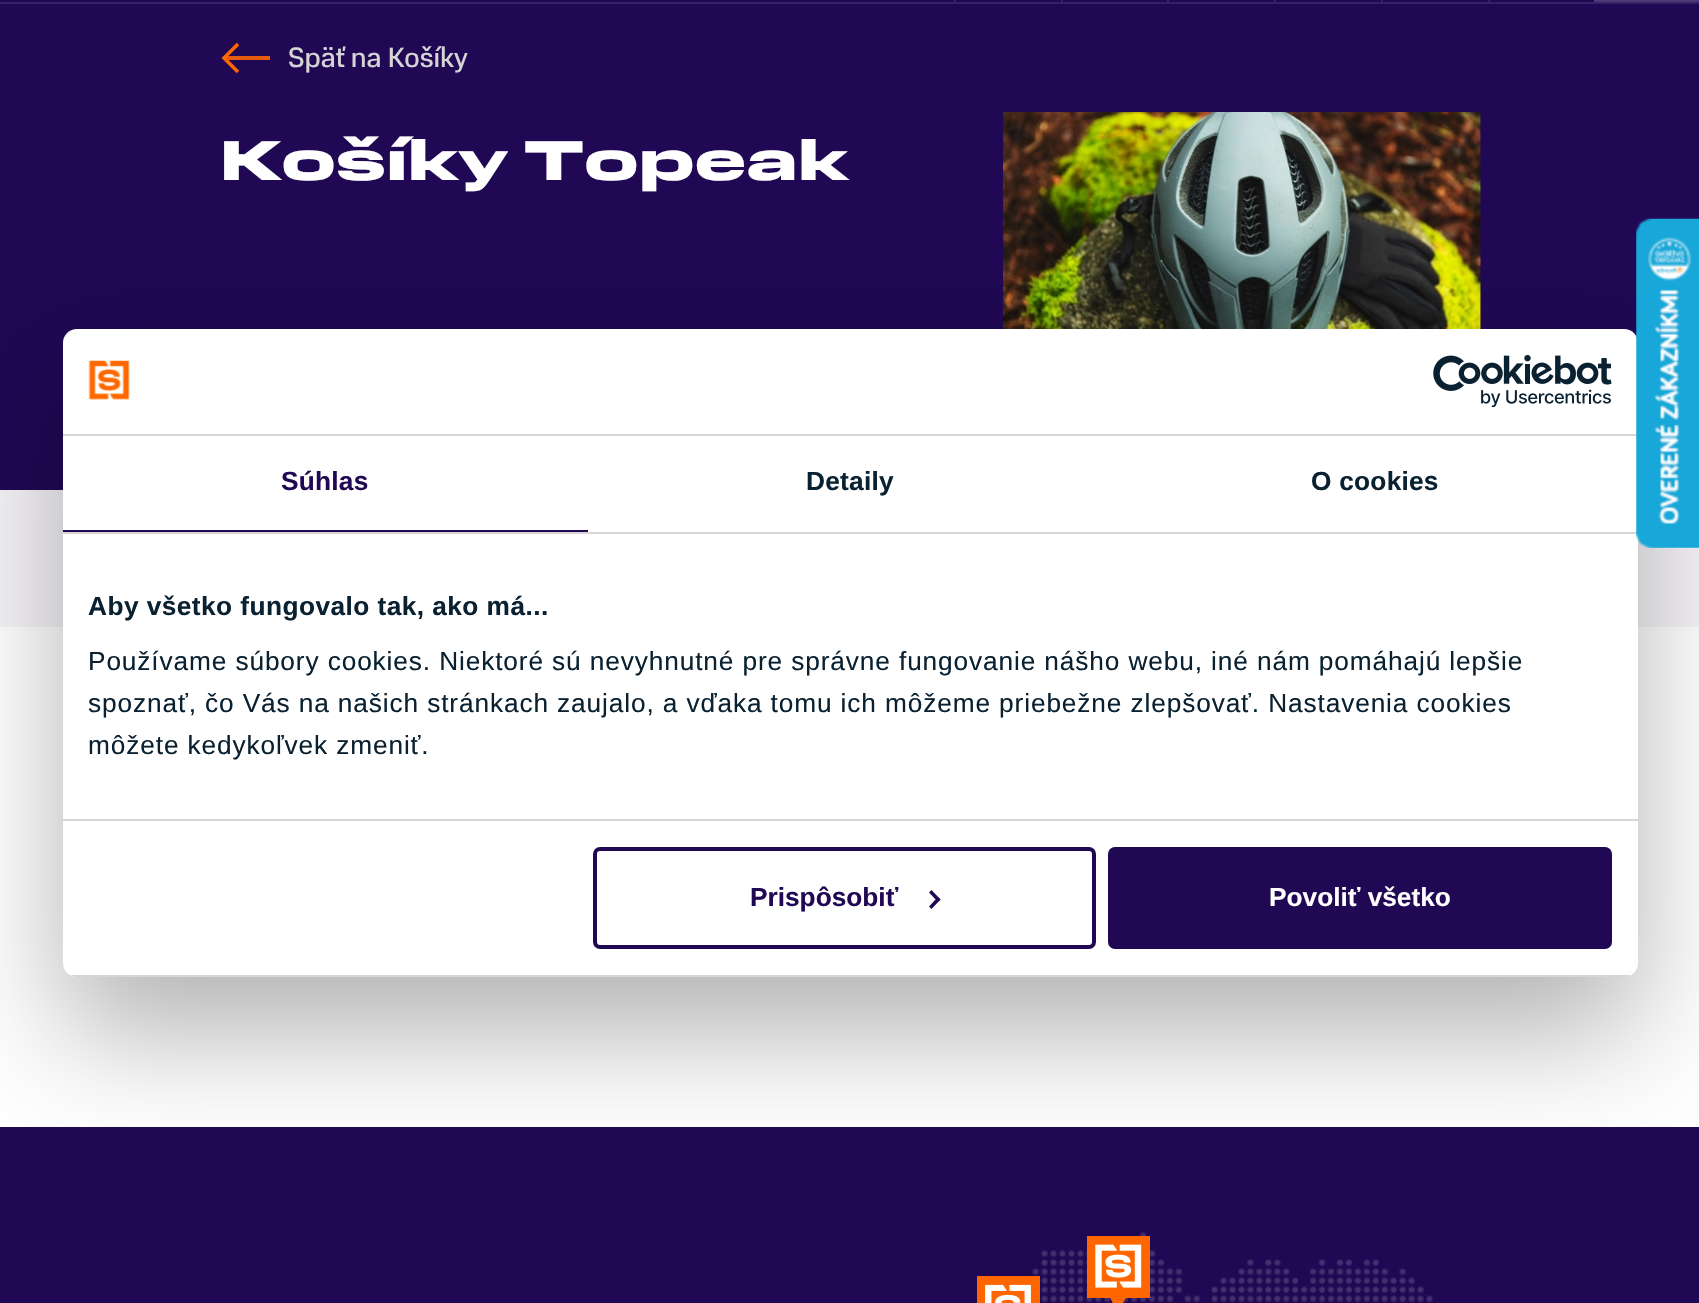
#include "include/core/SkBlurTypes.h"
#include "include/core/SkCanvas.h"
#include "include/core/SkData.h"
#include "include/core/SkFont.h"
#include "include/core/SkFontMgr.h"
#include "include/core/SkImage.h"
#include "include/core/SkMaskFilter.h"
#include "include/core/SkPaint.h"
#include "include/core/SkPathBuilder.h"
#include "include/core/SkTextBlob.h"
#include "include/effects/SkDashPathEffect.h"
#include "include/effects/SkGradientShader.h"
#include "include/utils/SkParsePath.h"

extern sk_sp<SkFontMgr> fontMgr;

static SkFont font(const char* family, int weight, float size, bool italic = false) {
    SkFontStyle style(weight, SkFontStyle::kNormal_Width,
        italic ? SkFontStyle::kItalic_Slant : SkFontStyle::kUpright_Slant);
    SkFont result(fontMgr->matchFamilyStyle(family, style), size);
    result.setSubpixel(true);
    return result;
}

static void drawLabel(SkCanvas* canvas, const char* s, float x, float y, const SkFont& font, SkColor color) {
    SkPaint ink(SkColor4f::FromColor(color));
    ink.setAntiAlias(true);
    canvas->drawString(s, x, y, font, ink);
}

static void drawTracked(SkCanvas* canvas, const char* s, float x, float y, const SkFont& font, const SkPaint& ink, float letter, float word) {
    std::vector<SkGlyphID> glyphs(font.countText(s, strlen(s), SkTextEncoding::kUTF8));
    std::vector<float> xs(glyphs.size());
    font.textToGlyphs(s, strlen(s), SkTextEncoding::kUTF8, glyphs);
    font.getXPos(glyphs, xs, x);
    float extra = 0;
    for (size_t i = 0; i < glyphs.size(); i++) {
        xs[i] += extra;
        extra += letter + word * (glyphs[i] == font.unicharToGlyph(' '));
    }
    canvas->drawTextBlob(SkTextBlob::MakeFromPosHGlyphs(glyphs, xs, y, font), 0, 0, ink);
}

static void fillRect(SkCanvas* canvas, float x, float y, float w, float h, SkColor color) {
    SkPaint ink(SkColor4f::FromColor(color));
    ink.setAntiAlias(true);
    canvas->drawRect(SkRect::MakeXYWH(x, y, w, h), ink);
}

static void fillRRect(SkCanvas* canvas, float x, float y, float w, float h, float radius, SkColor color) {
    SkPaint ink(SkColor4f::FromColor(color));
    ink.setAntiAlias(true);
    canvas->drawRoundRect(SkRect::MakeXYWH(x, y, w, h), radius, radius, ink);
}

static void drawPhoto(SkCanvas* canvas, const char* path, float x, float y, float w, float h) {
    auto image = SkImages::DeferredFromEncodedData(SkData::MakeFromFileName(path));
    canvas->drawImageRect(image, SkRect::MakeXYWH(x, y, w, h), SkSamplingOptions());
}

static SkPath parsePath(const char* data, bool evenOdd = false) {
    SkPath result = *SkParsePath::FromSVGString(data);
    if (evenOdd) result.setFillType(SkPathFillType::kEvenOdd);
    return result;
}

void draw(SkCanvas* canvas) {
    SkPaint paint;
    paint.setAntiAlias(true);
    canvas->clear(0xFFFFFFFF);
    fillRect(canvas, 0, 0, 1594, 2, 0xFF200854);
    fillRect(canvas, 0, 2, 1699, 2, 0xFF372165);
    fillRect(canvas, 954, 0, 2, 2, 0xFF372165);
    fillRect(canvas, 1061, 0, 2, 2, 0xFF372165);
    fillRect(canvas, 1167, 0, 2, 2, 0xFF372165);
    fillRect(canvas, 1274, 0, 2, 2, 0xFF372165);
    fillRect(canvas, 1381, 0, 2, 2, 0xFF372165);
    fillRect(canvas, 1488, 0, 2, 2, 0xFF372165);
    fillRect(canvas, 1594, 0, 105, 2, 0xFF4D3976);
    fillRect(canvas, 0, 4, 1699, 486, 0xFF200854);
    paint.setStroke(true);
    paint.setStrokeWidth(3.5f);
    paint.setColor(0xFFFF6600);
    canvas->drawPath(parsePath("M238 44L224 58L238 72"), paint);
    fillRect(canvas, 224, 56, 46, 4, 0xE0FF6600);
    SkFont font1 = font("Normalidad", 400, 28);
    drawLabel(canvas, "Späť na Košíky", 288, 67, font1, 0xFFD4D4D5);
    SkFont font2 = font("Normalidad", 900, 56);
    paint.setStroke(false);
    paint.setColor(0xFFFFFFFF);
    drawTracked(canvas, "Košíky Topeak", 220, 180, font2, paint, 0.88f, 0);
    drawPhoto(canvas, "assets/img1.png", 1003, 112, 478, 217);
    fillRect(canvas, 0, 490, 1699, 137, 0xFFF5F3F7);
    fillRect(canvas, 0, 1127, 1699, 176, 0xFF200854);
    paint.setColor(0x4D000000);
    paint.setMaskFilter(SkMaskFilter::MakeBlur(kNormal_SkBlurStyle, 59.5f));
    canvas->drawRoundRect(SkRect::MakeXYWH(63, 385, 1575, 648), 14, 14, paint);
    paint.setMaskFilter(nullptr);
    fillRRect(canvas, 63, 329, 1575, 648, 14, 0xFFFFFFFF);
    fillRect(canvas, 63, 434, 1575, 2, 0xFFD6D6D6);
    fillRect(canvas, 63, 532, 1575, 2, 0xFFD6D6D6);
    drawPhoto(canvas, "assets/img2.png", 1636, 218, 63, 330);
    drawPhoto(canvas, "assets/img3.png", 88, 360, 42, 40);
    drawPhoto(canvas, "assets/img4.png", 1433, 355, 179, 53);
    fillRect(canvas, 63, 530, 525, 2, 0xFF200854);
    SkFont font3 = font("Liberation Sans", 700, 26.25f);
    paint.setColor(0xFF200854);
    drawTracked(canvas, "Súhlas", 281, 490, font3, paint, 0.25f, 0);
    paint.setColor(0xFF0A2131);
    drawTracked(canvas, "Detaily", 806, 490, font3, paint, 0.25f, 0);
    drawTracked(canvas, "O cookies", 1311, 490, font3, paint, 0.25f, 0);
    fillRect(canvas, 63, 819, 1575, 2, 0xFFD6D6D6);
    drawTracked(canvas, "Aby všetko fungovalo tak, ako má...", 88, 615, font3, paint, 0.45f, 0);
    SkFont font4 = font("Liberation Sans", 400, 26.25f);
    drawTracked(canvas, "Používame súbory cookies. Niektoré sú nevyhnutné pre správne fungovanie nášho webu, iné nám pomáhajú lepšie", 88, 670, font4, paint, 0.88f, 0);
    drawTracked(canvas, "spoznať, čo Vás na našich stránkach zaujalo, a vďaka tomu ich môžeme priebežne zlepšovať. Nastavenia cookies", 88, 712, font4, paint, 0.88f, 0);
    drawTracked(canvas, "môžete kedykoľvek zmeniť.", 88, 754, font4, paint, 0.88f, 0);
    canvas->save();
    canvas->clipPath(parsePath("M77 329H1624C1631.5 329 1638 335.5 1638 343V963C1638 970.5 1631.5 977 1624 977H77C69.5 977 63 970.5 63 963V343C63 335.5 69.5 329 77 329Z"), true);
    fillRect(canvas, 63, 975, 1575, 2, 0xFFD6D6D6);
    canvas->restore();
    paint.setStroke(true);
    paint.setStrokeWidth(4);
    paint.setColor(0xFF200854);
    canvas->drawRoundRect(SkRect::MakeXYWH(595, 849, 499, 98), 5, 5, paint);
    drawLabel(canvas, "Prispôsobiť", 750, 906, font3, 0xFF200854);
    paint.setStroke(false);
    canvas->drawPath(parsePath("M931.5 890L940.5 899.5L938 902L929 892.5Z"), paint);
    canvas->drawPath(parsePath("M938 897L940.5 899.5L931.5 909L929 906.5Z"), paint);
    canvas->drawRoundRect(SkRect::MakeXYWH(1110, 849, 500, 98), 5, 5, paint);
    paint.setStroke(true);
    canvas->drawRoundRect(SkRect::MakeXYWH(1110, 849, 500, 98), 5, 5, paint);
    drawLabel(canvas, "Povoliť všetko", 1269, 906, font3, 0xFFFFFFFF);
    drawPhoto(canvas, "assets/img5.png", 1032, 1232, 401, 71);
    drawPhoto(canvas, "assets/img6.png", 977, 1276, 63, 27);
    drawPhoto(canvas, "assets/img7.png", 1087, 1236, 63, 67);
}
